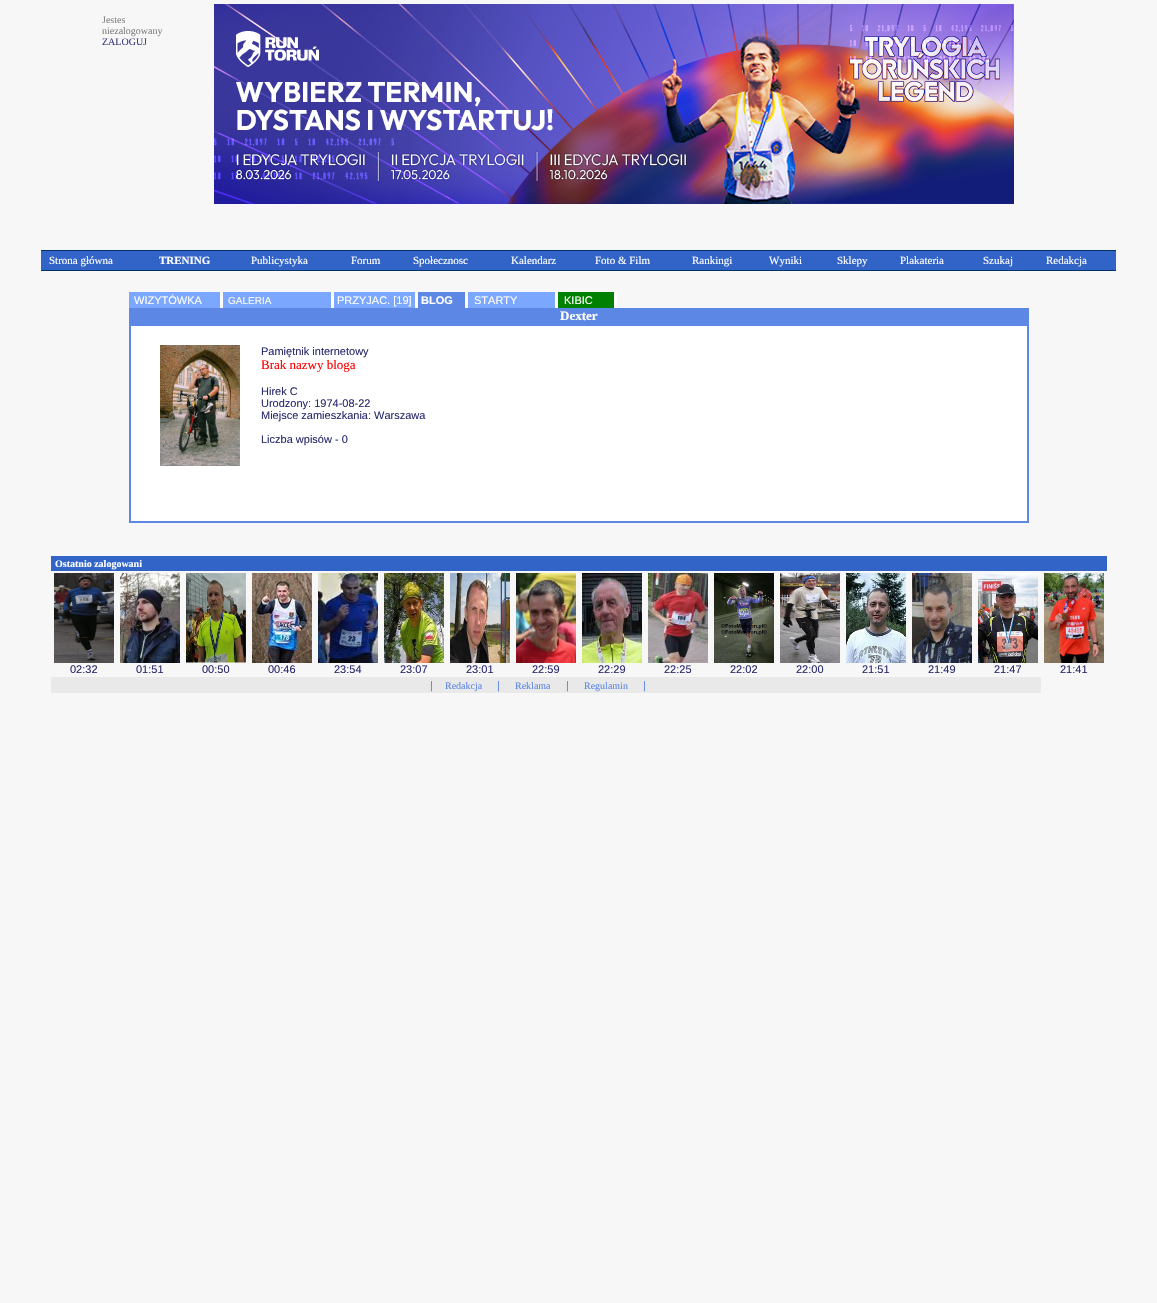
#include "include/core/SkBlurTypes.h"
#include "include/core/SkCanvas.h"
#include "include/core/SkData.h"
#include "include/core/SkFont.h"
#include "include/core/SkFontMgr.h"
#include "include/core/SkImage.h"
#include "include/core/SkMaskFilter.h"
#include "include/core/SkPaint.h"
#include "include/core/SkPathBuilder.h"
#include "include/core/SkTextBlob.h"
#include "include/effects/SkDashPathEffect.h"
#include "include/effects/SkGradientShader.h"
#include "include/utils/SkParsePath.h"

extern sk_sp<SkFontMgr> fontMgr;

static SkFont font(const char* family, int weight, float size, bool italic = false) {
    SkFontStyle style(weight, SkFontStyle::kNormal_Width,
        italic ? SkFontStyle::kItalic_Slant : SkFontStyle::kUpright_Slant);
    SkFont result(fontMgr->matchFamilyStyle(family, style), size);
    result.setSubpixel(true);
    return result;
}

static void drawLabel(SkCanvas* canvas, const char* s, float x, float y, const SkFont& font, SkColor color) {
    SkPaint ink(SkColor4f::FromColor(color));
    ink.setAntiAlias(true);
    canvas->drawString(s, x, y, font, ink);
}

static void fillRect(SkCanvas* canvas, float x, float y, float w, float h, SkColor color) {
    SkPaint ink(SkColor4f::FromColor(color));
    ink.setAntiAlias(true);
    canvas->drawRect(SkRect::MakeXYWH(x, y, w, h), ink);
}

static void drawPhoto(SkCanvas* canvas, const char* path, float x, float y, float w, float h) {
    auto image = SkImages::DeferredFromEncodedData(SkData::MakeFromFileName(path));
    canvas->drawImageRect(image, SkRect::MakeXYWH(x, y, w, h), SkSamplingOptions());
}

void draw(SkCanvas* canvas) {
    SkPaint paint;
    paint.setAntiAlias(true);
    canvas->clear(0xFFF7F7F7);
    SkFont font1 = font("Liberation Serif", 400, 10);
    drawLabel(canvas, "Jestes", 102, 23, font1, 0xFF808080);
    drawLabel(canvas, "niezalogowany", 102, 34, font1, 0xFF808080);
    drawLabel(canvas, "ZALOGUJ", 102, 45, font1, 0xFF393A7D);
    drawPhoto(canvas, "assets/img1.png", 214, 4, 800, 200);
    fillRect(canvas, 41, 251, 1075, 19, 0xFF3264C7);
    fillRect(canvas, 41, 250, 1075, 1, 0xFF003366);
    fillRect(canvas, 41, 270, 1075, 1, 0xFF003366);
    SkFont font2 = font("Liberation Serif", 400, 11);
    drawLabel(canvas, "Strona główna", 49, 264, font2, 0xFFFFFFFF);
    SkFont font3 = font("Liberation Serif", 700, 11);
    drawLabel(canvas, "TRENING", 159, 264, font3, 0xFFFFFFFF);
    drawLabel(canvas, "Publicystyka", 251, 264, font2, 0xFFFFFFFF);
    drawLabel(canvas, "Forum", 351, 264, font2, 0xFFFFFFFF);
    drawLabel(canvas, "Społecznosc", 413, 264, font2, 0xFFFFFFFF);
    drawLabel(canvas, "Kalendarz", 511, 264, font2, 0xFFFFFFFF);
    drawLabel(canvas, "Foto & Film", 595, 264, font2, 0xFFFFFFFF);
    drawLabel(canvas, "Rankingi", 692, 264, font2, 0xFFFFFFFF);
    drawLabel(canvas, "Wyniki", 769, 264, font2, 0xFFFFFFFF);
    drawLabel(canvas, "Sklepy", 837, 264, font2, 0xFFFFFFFF);
    drawLabel(canvas, "Plakateria", 900, 264, font2, 0xFFFFFFFF);
    drawLabel(canvas, "Szukaj", 983, 264, font2, 0xFFFFFFFF);
    drawLabel(canvas, "Redakcja", 1046, 264, font2, 0xFFFFFFFF);
    fillRect(canvas, 129, 292, 91, 16, 0xFF7CA7FF);
    SkFont font4 = font("Liberation Sans", 400, 11);
    drawLabel(canvas, "WIZYTÓWKA", 134, 304, font4, 0xFFFFFFFF);
    fillRect(canvas, 220, 292, 3, 16, 0xFFFFFFFF);
    fillRect(canvas, 223, 292, 108, 16, 0xFF7CA7FF);
    SkFont font5 = font("Liberation Sans", 400, 10);
    drawLabel(canvas, "GALERIA", 228, 304, font5, 0xFFF7F7F7);
    fillRect(canvas, 331, 292, 3, 16, 0xFFFFFFFF);
    fillRect(canvas, 334, 292, 81, 16, 0xFF7CA7FF);
    drawLabel(canvas, "PRZYJAC. [19]", 337, 304, font4, 0xFFFFFFFF);
    fillRect(canvas, 415, 292, 3, 16, 0xFFFFFFFF);
    fillRect(canvas, 418, 292, 47, 16, 0xFF5C87E4);
    SkFont font6 = font("Liberation Sans", 700, 11);
    drawLabel(canvas, "BLOG", 421, 304, font6, 0xFFFFFFFF);
    fillRect(canvas, 465, 292, 3, 16, 0xFFFFFFFF);
    fillRect(canvas, 468, 292, 87, 16, 0xFF7CA7FF);
    drawLabel(canvas, "STARTY", 474, 304, font4, 0xFFFFFFFF);
    fillRect(canvas, 555, 292, 3, 16, 0xFFFFFFFF);
    fillRect(canvas, 558, 292, 56, 16, 0xFF008000);
    drawLabel(canvas, "KIBIC", 564, 304, font4, 0xFFFFFFFF);
    fillRect(canvas, 614, 292, 3, 16, 0xFFFFFFFF);
    fillRect(canvas, 129, 308, 900, 16, 0xFF5C87E4);
    SkFont font7 = font("Liberation Serif", 700, 13);
    drawLabel(canvas, "Dexter", 560, 320, font7, 0xFFFFFFFF);
    paint.setStroke(true);
    paint.setStrokeWidth(1);
    paint.setColor(0xFF5C87E4);
    canvas->drawRect(SkRect::MakeXYWH(129.5f, 324.5f, 899, 198), paint);
    paint.setStroke(false);
    paint.setColor(0xFFFFFFFF);
    canvas->drawRect(SkRect::MakeXYWH(130.5f, 325.5f, 897, 196), paint);
    paint.setStroke(true);
    paint.setColor(0xFF5C87E4);
    canvas->drawRect(SkRect::MakeXYWH(130.5f, 325.5f, 897, 196), paint);
    drawPhoto(canvas, "assets/img2.png", 160, 345, 80, 121);
    drawLabel(canvas, "Pamiętnik internetowy", 261, 355, font4, 0xFF292A6D);
    SkFont font8 = font("Liberation Serif", 400, 13);
    drawLabel(canvas, "Brak nazwy bloga", 261, 369, font8, 0xFFFF0000);
    drawLabel(canvas, "Hirek C", 261, 395, font4, 0xFF292A6D);
    drawLabel(canvas, "Urodzony: 1974-08-22", 261, 407, font4, 0xFF292A6D);
    drawLabel(canvas, "Miejsce zamieszkania: Warszawa", 261, 419, font4, 0xFF292A6D);
    drawLabel(canvas, "Liczba wpisów - 0", 261, 443, font4, 0xFF292A6D);
    fillRect(canvas, 51, 556, 1056, 15, 0xFF3264C7);
    SkFont font9 = font("Liberation Serif", 700, 10);
    drawLabel(canvas, "Ostatnio zalogowani", 55, 567, font9, 0xFFFFFFFF);
    drawPhoto(canvas, "assets/img3.png", 54, 573, 60, 90);
    drawLabel(canvas, "02:32", 70, 673, font4, 0xFF292A6D);
    drawPhoto(canvas, "assets/img4.png", 120, 573, 60, 90);
    drawLabel(canvas, "01:51", 136, 673, font4, 0xFF292A6D);
    drawPhoto(canvas, "assets/img5.png", 186, 573, 60, 90);
    drawLabel(canvas, "00:50", 202, 673, font4, 0xFF292A6D);
    drawPhoto(canvas, "assets/img6.png", 252, 573, 60, 90);
    drawLabel(canvas, "00:46", 268, 673, font4, 0xFF292A6D);
    drawPhoto(canvas, "assets/img7.png", 318, 573, 60, 90);
    drawLabel(canvas, "23:54", 334, 673, font4, 0xFF292A6D);
    drawPhoto(canvas, "assets/img8.png", 384, 573, 60, 90);
    drawLabel(canvas, "23:07", 400, 673, font4, 0xFF292A6D);
    drawPhoto(canvas, "assets/img9.png", 450, 573, 60, 90);
    drawLabel(canvas, "23:01", 466, 673, font4, 0xFF292A6D);
    drawPhoto(canvas, "assets/img10.png", 516, 573, 60, 90);
    drawLabel(canvas, "22:59", 532, 673, font4, 0xFF292A6D);
    drawPhoto(canvas, "assets/img11.png", 582, 573, 60, 90);
    drawLabel(canvas, "22:29", 598, 673, font4, 0xFF292A6D);
    drawPhoto(canvas, "assets/img12.png", 648, 573, 60, 90);
    drawLabel(canvas, "22:25", 664, 673, font4, 0xFF292A6D);
    drawPhoto(canvas, "assets/img13.png", 714, 573, 60, 90);
    drawLabel(canvas, "22:02", 730, 673, font4, 0xFF292A6D);
    drawPhoto(canvas, "assets/img14.png", 780, 573, 60, 90);
    drawLabel(canvas, "22:00", 796, 673, font4, 0xFF292A6D);
    drawPhoto(canvas, "assets/img15.png", 846, 573, 60, 90);
    drawLabel(canvas, "21:51", 862, 673, font4, 0xFF292A6D);
    drawPhoto(canvas, "assets/img16.png", 912, 573, 60, 90);
    drawLabel(canvas, "21:49", 928, 673, font4, 0xFF292A6D);
    drawPhoto(canvas, "assets/img17.png", 978, 573, 60, 90);
    drawLabel(canvas, "21:47", 994, 673, font4, 0xFF292A6D);
    drawPhoto(canvas, "assets/img18.png", 1044, 573, 60, 90);
    drawLabel(canvas, "21:41", 1060, 673, font4, 0xFF292A6D);
    fillRect(canvas, 51, 677, 990, 16, 0xFFE9E9E9);
    drawLabel(canvas, "|", 430, 689, font4, 0xFF5C87E4);
    drawLabel(canvas, "Redakcja", 445, 689, font1, 0xFF5C87E4);
    drawLabel(canvas, "|", 497, 689, font4, 0xFF5C87E4);
    drawLabel(canvas, "Reklama", 515, 689, font1, 0xFF5C87E4);
    drawLabel(canvas, "|", 566, 689, font4, 0xFF5C87E4);
    drawLabel(canvas, "Regulamin", 584, 689, font1, 0xFF5C87E4);
    drawLabel(canvas, "|", 643, 689, font4, 0xFF5C87E4);
}
